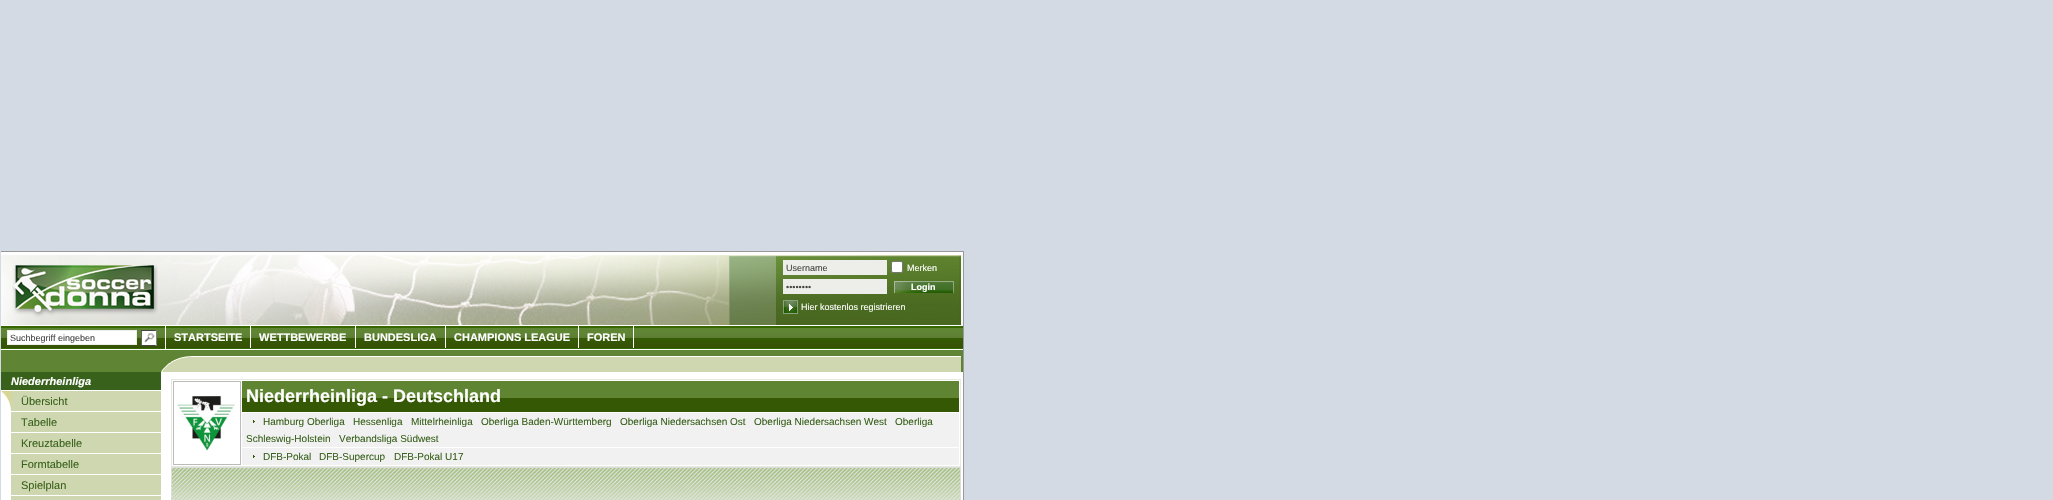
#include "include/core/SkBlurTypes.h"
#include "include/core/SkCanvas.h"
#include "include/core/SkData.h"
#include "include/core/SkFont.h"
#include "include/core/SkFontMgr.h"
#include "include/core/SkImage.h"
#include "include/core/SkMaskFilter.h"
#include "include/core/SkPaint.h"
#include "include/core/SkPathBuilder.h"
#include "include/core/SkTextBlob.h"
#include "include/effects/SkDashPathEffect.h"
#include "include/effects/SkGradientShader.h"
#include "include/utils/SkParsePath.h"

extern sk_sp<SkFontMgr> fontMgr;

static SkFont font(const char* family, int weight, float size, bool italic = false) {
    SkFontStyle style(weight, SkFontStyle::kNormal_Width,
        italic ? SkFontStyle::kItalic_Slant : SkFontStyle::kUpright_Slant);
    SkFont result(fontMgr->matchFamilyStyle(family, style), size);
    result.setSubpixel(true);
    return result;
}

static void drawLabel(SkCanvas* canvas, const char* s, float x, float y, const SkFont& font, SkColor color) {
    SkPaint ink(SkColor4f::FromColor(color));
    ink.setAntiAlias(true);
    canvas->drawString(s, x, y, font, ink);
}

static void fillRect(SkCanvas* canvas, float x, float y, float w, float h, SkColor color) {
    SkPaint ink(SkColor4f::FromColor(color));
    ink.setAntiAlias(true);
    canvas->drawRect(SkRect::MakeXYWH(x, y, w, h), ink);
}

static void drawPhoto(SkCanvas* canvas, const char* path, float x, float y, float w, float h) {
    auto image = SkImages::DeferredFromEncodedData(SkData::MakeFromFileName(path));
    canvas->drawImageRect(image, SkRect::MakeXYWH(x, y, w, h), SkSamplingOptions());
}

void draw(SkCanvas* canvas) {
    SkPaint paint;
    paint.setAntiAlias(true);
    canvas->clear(0xFFD4DAE3);
    fillRect(canvas, 1, 252, 962, 248, 0xFFFFFFFF);
    fillRect(canvas, 1, 251, 963, 1, 0xFF999999);
    fillRect(canvas, 963, 251, 1, 249, 0xFF999999);
    drawPhoto(canvas, "assets/img1.png", 1, 255, 962, 70);
    drawPhoto(canvas, "assets/img2.png", 12, 265, 146, 52);
    fillRect(canvas, 783, 260, 104, 15, 0xFFEDEEE9);
    SkFont font1 = font("Liberation Sans", 400, 9);
    drawLabel(canvas, "Username", 786, 271, font1, 0xFF444444);
    paint.setColor(0xFFFFFFFF);
    canvas->drawRoundRect(SkRect::MakeXYWH(891.5f, 261.5f, 11, 11), 1.5f, 1.5f, paint);
    paint.setStroke(true);
    paint.setStrokeWidth(1);
    paint.setColor(0xFF767676);
    canvas->drawRoundRect(SkRect::MakeXYWH(891.5f, 261.5f, 11, 11), 1.5f, 1.5f, paint);
    drawLabel(canvas, "Merken", 907, 271, font1, 0xFFFFFFFF);
    fillRect(canvas, 783, 279, 104, 15, 0xFFEDEEE9);
    drawLabel(canvas, "••••••••", 786, 290, font1, 0xFF444444);
    drawPhoto(canvas, "assets/img3.png", 894, 281, 60, 12);
    SkFont font2 = font("Liberation Sans", 700, 9);
    drawLabel(canvas, "Login", 911, 290, font2, 0xFFFFFFFF);
    drawPhoto(canvas, "assets/img4.png", 783, 300, 15, 14);
    drawLabel(canvas, "Hier kostenlos registrieren", 801, 310, font1, 0xFFFFFFFF);
    drawPhoto(canvas, "assets/img5.png", 1, 326, 962, 23);
    fillRect(canvas, 165, 326, 1, 23, 0xFFFFFFFF);
    paint.setStroke(false);
    paint.setColor(0xFFFFFFFF);
    canvas->drawRect(SkRect::MakeXYWH(7.5f, 330.5f, 129, 14), paint);
    paint.setStroke(true);
    paint.setColor(0xFFEDEEE9);
    canvas->drawRect(SkRect::MakeXYWH(7.5f, 330.5f, 129, 14), paint);
    drawLabel(canvas, "Suchbegriff eingeben", 10, 341, font1, 0xFF444444);
    drawPhoto(canvas, "assets/img6.png", 141, 330, 16, 16);
    fillRect(canvas, 250, 326, 1, 22, 0xFFFFFFFF);
    SkFont font3 = font("Liberation Sans", 700, 11);
    drawLabel(canvas, "STARTSEITE", 174, 341, font3, 0xFFFFFFFF);
    fillRect(canvas, 355, 326, 1, 22, 0xFFFFFFFF);
    drawLabel(canvas, "WETTBEWERBE", 259, 341, font3, 0xFFFFFFFF);
    fillRect(canvas, 445, 326, 1, 22, 0xFFFFFFFF);
    drawLabel(canvas, "BUNDESLIGA", 364, 341, font3, 0xFFFFFFFF);
    fillRect(canvas, 578, 326, 1, 22, 0xFFFFFFFF);
    drawLabel(canvas, "CHAMPIONS LEAGUE", 454, 341, font3, 0xFFFFFFFF);
    fillRect(canvas, 633, 326, 1, 22, 0xFFFFFFFF);
    drawLabel(canvas, "FOREN", 587, 341, font3, 0xFFFFFFFF);
    drawPhoto(canvas, "assets/img7.png", 1, 350, 962, 22);
    fillRect(canvas, 1, 372, 160, 18, 0xFF38611B);
    SkFont font4 = font("Liberation Sans", 700, 11, true);
    drawLabel(canvas, "Niederrheinliga", 11, 385, font4, 0xFFFFFFFF);
    fillRect(canvas, 11, 391, 150, 20, 0xFFCED7AF);
    drawPhoto(canvas, "assets/img8.png", 1, 391, 10, 20);
    SkFont font5 = font("Liberation Sans", 400, 11);
    drawLabel(canvas, "Übersicht", 21, 405, font5, 0xFF38611B);
    fillRect(canvas, 11, 412, 150, 20, 0xFFCED7AF);
    drawLabel(canvas, "Tabelle", 21, 426, font5, 0xFF38611B);
    fillRect(canvas, 11, 433, 150, 20, 0xFFCED7AF);
    drawLabel(canvas, "Kreuztabelle", 21, 447, font5, 0xFF38611B);
    fillRect(canvas, 11, 454, 150, 20, 0xFFCED7AF);
    drawLabel(canvas, "Formtabelle", 21, 468, font5, 0xFF38611B);
    fillRect(canvas, 11, 475, 150, 20, 0xFFCED7AF);
    drawLabel(canvas, "Spielplan", 21, 489, font5, 0xFF38611B);
    fillRect(canvas, 11, 496, 150, 4, 0xFFCED7AF);
    paint.setColor(0xFFE5E8DE);
    canvas->drawRect(SkRect::MakeXYWH(171.5f, 379.5f, 789, 87), paint);
    paint.setColor(0xFFBBBBBB);
    canvas->drawRect(SkRect::MakeXYWH(173.5f, 381.5f, 67, 83), paint);
    drawPhoto(canvas, "assets/img9.png", 177, 396, 58, 55);
    drawPhoto(canvas, "assets/img10.png", 242, 381, 717, 31);
    SkFont font6 = font("Liberation Sans", 700, 18);
    drawLabel(canvas, "Niederrheinliga - Deutschland", 246, 402, font6, 0xFFFFFFFF);
    fillRect(canvas, 242, 413, 717, 34, 0xFFF1F1F1);
    drawPhoto(canvas, "assets/img11.png", 253, 420, 2, 3);
    SkFont font7 = font("Liberation Sans", 400, 10);
    drawLabel(canvas, "Hamburg Oberliga", 263, 425, font7, 0xFF38611B);
    drawLabel(canvas, "Hessenliga", 353, 425, font7, 0xFF38611B);
    drawLabel(canvas, "Mittelrheinliga", 411, 425, font7, 0xFF38611B);
    drawLabel(canvas, "Oberliga Baden-Württemberg", 481, 425, font7, 0xFF38611B);
    drawLabel(canvas, "Oberliga Niedersachsen Ost", 620, 425, font7, 0xFF38611B);
    drawLabel(canvas, "Oberliga Niedersachsen West", 754, 425, font7, 0xFF38611B);
    drawLabel(canvas, "Oberliga", 895, 425, font7, 0xFF38611B);
    drawLabel(canvas, "Schleswig-Holstein", 246, 442, font7, 0xFF38611B);
    drawLabel(canvas, "Verbandsliga Südwest", 339, 442, font7, 0xFF38611B);
    fillRect(canvas, 242, 448, 717, 17, 0xFFF1F1F1);
    drawPhoto(canvas, "assets/img11.png", 253, 455, 2, 3);
    drawLabel(canvas, "DFB-Pokal", 263, 460, font7, 0xFF38611B);
    drawLabel(canvas, "DFB-Supercup", 319, 460, font7, 0xFF38611B);
    drawLabel(canvas, "DFB-Pokal U17", 394, 460, font7, 0xFF38611B);
    drawPhoto(canvas, "assets/img12.png", 172, 468, 788, 32);
    paint.setColor(0xFFDDDDDD);
    canvas->drawRect(SkRect::MakeXYWH(171.5f, 467.5f, 789, 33), paint);
}
